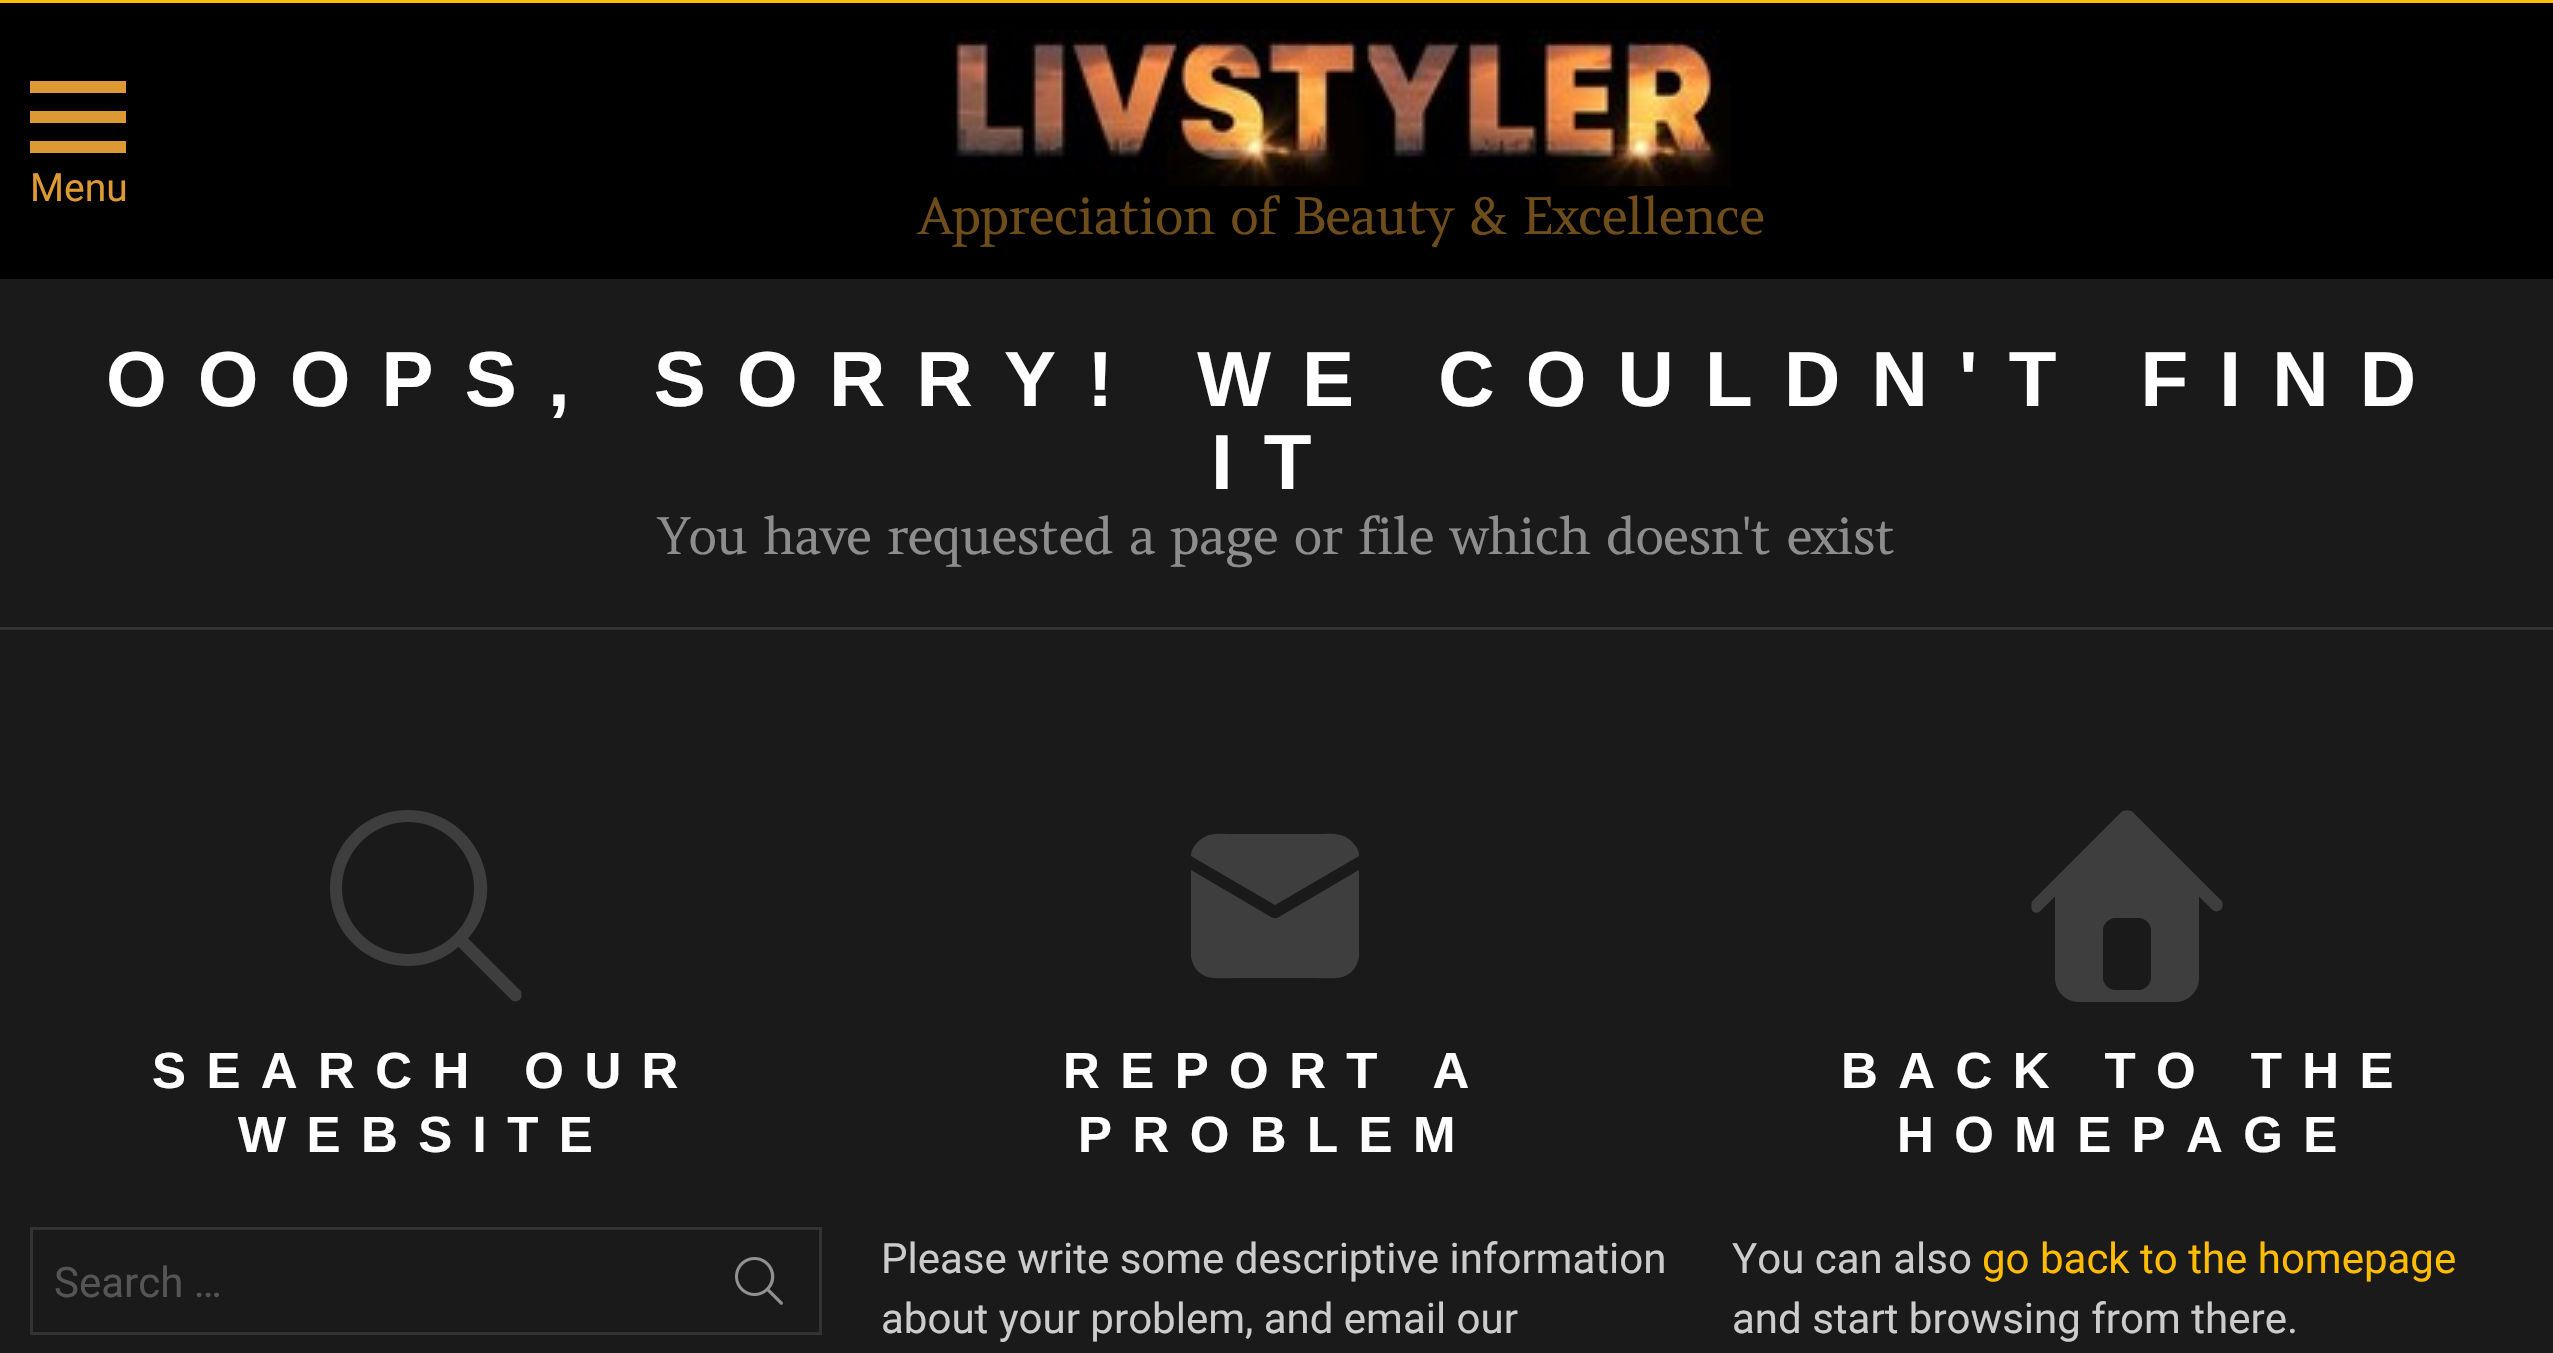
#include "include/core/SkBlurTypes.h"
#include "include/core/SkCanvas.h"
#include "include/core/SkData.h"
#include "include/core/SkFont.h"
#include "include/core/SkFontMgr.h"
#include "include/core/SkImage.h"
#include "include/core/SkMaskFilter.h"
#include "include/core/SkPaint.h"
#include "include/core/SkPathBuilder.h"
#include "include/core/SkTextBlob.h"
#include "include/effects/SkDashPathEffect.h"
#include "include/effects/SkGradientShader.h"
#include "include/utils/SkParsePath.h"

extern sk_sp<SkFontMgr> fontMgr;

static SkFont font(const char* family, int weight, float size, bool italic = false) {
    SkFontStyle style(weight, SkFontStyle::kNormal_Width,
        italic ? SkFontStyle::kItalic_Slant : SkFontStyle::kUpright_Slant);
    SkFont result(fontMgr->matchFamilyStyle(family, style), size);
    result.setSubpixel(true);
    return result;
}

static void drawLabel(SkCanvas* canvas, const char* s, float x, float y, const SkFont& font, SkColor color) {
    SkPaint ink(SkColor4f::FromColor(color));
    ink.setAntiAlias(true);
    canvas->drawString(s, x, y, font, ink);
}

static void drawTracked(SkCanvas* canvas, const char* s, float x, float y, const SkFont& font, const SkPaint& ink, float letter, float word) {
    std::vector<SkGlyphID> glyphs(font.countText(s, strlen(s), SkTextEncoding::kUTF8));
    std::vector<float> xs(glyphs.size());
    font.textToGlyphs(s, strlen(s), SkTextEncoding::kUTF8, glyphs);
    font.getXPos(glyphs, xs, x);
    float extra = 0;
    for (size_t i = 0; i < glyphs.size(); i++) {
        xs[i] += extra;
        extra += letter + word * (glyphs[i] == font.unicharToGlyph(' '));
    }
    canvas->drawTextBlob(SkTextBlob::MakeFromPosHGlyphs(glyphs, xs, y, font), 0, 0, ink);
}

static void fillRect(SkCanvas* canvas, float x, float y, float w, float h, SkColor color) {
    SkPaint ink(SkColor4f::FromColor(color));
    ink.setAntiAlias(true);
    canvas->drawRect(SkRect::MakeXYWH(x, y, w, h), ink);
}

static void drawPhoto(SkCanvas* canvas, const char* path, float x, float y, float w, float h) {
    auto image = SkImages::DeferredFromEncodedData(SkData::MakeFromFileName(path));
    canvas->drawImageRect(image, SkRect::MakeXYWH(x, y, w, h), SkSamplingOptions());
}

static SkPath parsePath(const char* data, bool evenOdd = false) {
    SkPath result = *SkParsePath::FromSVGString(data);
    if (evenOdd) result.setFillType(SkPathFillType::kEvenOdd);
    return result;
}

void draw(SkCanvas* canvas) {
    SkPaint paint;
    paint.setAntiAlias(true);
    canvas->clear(0xFF000000);
    fillRect(canvas, 0, 0, 2553, 3, 0xFFFFBC01);
    paint.setColor(0xFFDD9933);
    canvas->drawPath(parsePath("M30 81H126V93H30ZM30 111H126V123H30ZM30 141H126V153H30Z"), paint);
    SkFont font1 = font("Roboto", 400, 39);
    drawLabel(canvas, "Menu", 30, 201, font1, 0xFFDD9933);
    drawPhoto(canvas, "assets/img1.png", 950, 30, 781, 156);
    SkFont font2 = font("Amethysta", 400, 51);
    paint.setColor(0xFF6F4D1A);
    drawTracked(canvas, "Appreciation of Beauty & Excellence", 917, 234, font2, paint, -1.27f, 0);
    fillRect(canvas, 0, 279, 2553, 348, 0xFF1A1A1A);
    fillRect(canvas, 0, 627, 2553, 3, 0xFF333333);
    SkFont font3 = font("Liberation Sans", 700, 78);
    paint.setColor(0xFFFFFFFF);
    drawTracked(canvas, "OOOPS, SORRY! WE COULDN'T FIND", 106, 406, font3, paint, 31.2f, 0);
    drawTracked(canvas, "IT", 1211, 489, font3, paint, 31.2f, 0);
    paint.setColor(0xFF8D8D8D);
    drawTracked(canvas, "You have requested a page or file which doesn't exist", 658, 554, font2, paint, -1.27f, 0);
    fillRect(canvas, 0, 630, 2553, 723, 0xFF1A1A1A);
    drawPhoto(canvas, "assets/img2.png", 330, 810, 192, 192);
    SkFont font4 = font("Liberation Sans", 700, 51);
    paint.setColor(0xFFFFFFFF);
    drawTracked(canvas, "SEARCH OUR", 152, 1088, font4, paint, 20.4f, 0);
    drawTracked(canvas, "WEBSITE", 238, 1152, font4, paint, 20.4f, 0);
    paint.setStroke(true);
    paint.setStrokeWidth(3);
    paint.setColor(0xFF333333);
    canvas->drawRect(SkRect::MakeXYWH(31.5f, 1228.5f, 789, 105), paint);
    SkFont font5 = font("Roboto", 400, 42);
    drawLabel(canvas, "Search …", 54, 1297, font5, 0xFF555555);
    drawPhoto(canvas, "assets/img3.png", 735, 1257, 48, 48);
    paint.setStroke(false);
    paint.setColor(0xFF3E3E3E);
    canvas->drawPath(parsePath("M1275 905L1359 856C1359 851 1357 847 1354 844C1344 831 1329 834 1315 834H1235C1221 834 1206 831 1196 844C1193 847 1191 851 1191 856ZM1279 917C1276 919 1274 918 1271 917L1191 870V957C1192 961 1193 965 1196 969C1205 981 1221 978 1235 978H1315C1329 978 1345 981 1354 969C1357 965 1358 961 1359 957V870Z"), paint);
    paint.setColor(0xFFFFFFFF);
    drawTracked(canvas, "REPORT A", 1063, 1088, font4, paint, 20.4f, 0);
    drawTracked(canvas, "PROBLEM", 1078, 1152, font4, paint, 20.4f, 0);
    drawLabel(canvas, "Please write some descriptive information", 881, 1273, font5, 0xFFCCCCCC);
    drawLabel(canvas, "about your problem, and email our", 881, 1333, font5, 0xFFCCCCCC);
    drawPhoto(canvas, "assets/img4.png", 2031, 810, 192, 192);
    drawTracked(canvas, "BACK TO THE", 1841, 1088, font4, paint, 20.4f, 0);
    drawTracked(canvas, "HOMEPAGE", 1897, 1152, font4, paint, 20.4f, 0);
    drawLabel(canvas, "You can also", 1732, 1273, font5, 0xFFCCCCCC);
    drawLabel(canvas, "go back to the homepage", 1982, 1273, font5, 0xFFFFBC01);
    drawLabel(canvas, "and start browsing from there.", 1732, 1333, font5, 0xFFCCCCCC);
}
